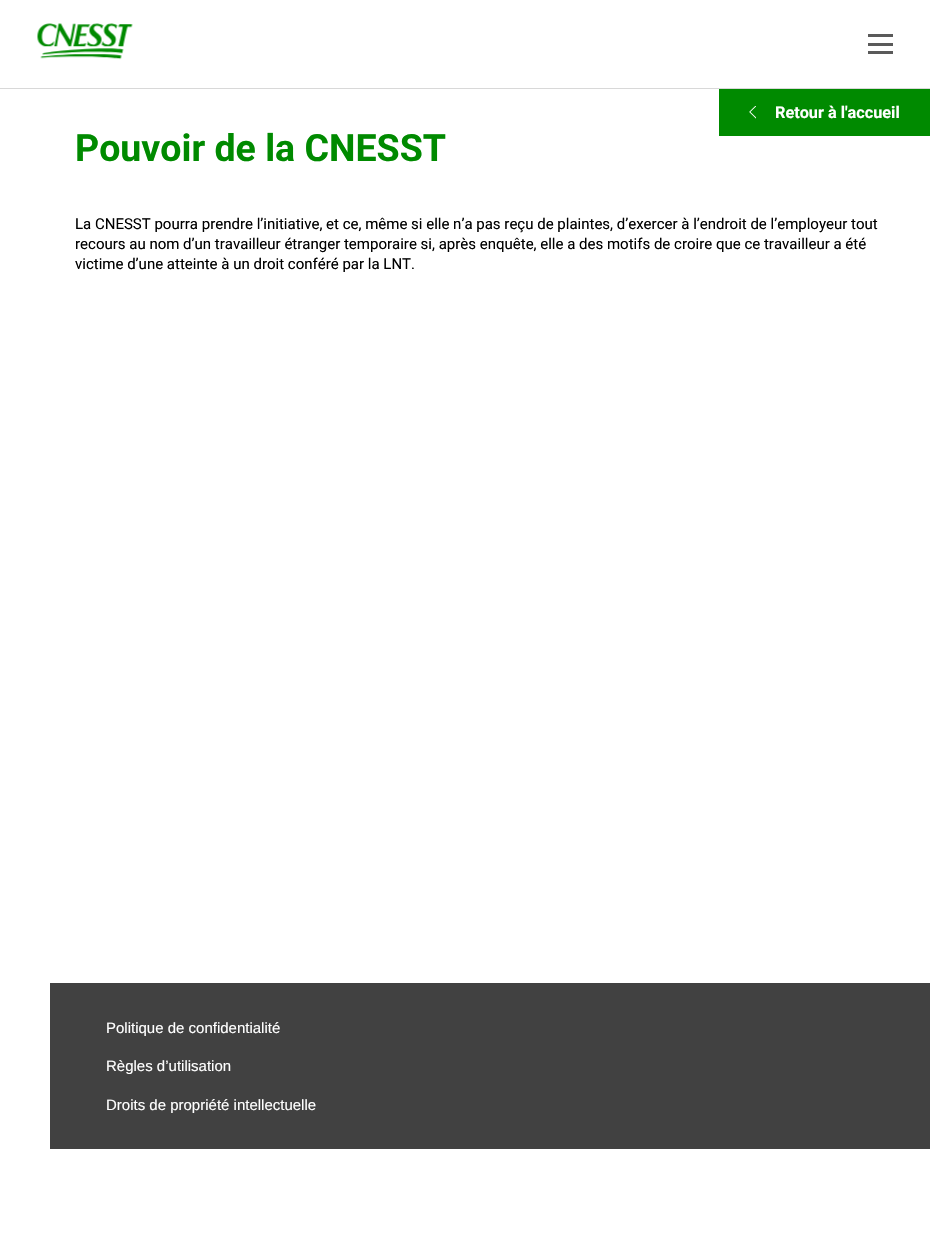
#include "include/core/SkBlurTypes.h"
#include "include/core/SkCanvas.h"
#include "include/core/SkData.h"
#include "include/core/SkFont.h"
#include "include/core/SkFontMgr.h"
#include "include/core/SkImage.h"
#include "include/core/SkMaskFilter.h"
#include "include/core/SkPaint.h"
#include "include/core/SkPathBuilder.h"
#include "include/core/SkTextBlob.h"
#include "include/effects/SkDashPathEffect.h"
#include "include/effects/SkGradientShader.h"
#include "include/utils/SkParsePath.h"

extern sk_sp<SkFontMgr> fontMgr;

static SkFont font(const char* family, int weight, float size, bool italic = false) {
    SkFontStyle style(weight, SkFontStyle::kNormal_Width,
        italic ? SkFontStyle::kItalic_Slant : SkFontStyle::kUpright_Slant);
    SkFont result(fontMgr->matchFamilyStyle(family, style), size);
    result.setSubpixel(true);
    return result;
}

static void drawLabel(SkCanvas* canvas, const char* s, float x, float y, const SkFont& font, SkColor color) {
    SkPaint ink(SkColor4f::FromColor(color));
    ink.setAntiAlias(true);
    canvas->drawString(s, x, y, font, ink);
}

static void fillRect(SkCanvas* canvas, float x, float y, float w, float h, SkColor color) {
    SkPaint ink(SkColor4f::FromColor(color));
    ink.setAntiAlias(true);
    canvas->drawRect(SkRect::MakeXYWH(x, y, w, h), ink);
}

static void drawPhoto(SkCanvas* canvas, const char* path, float x, float y, float w, float h) {
    auto image = SkImages::DeferredFromEncodedData(SkData::MakeFromFileName(path));
    canvas->drawImageRect(image, SkRect::MakeXYWH(x, y, w, h), SkSamplingOptions());
}

void draw(SkCanvas* canvas) {
    SkPaint paint;
    paint.setAntiAlias(true);
    canvas->clear(0xFFFFFFFF);
    fillRect(canvas, 0, 88, 930, 1, 0xFFD8D8D8);
    drawPhoto(canvas, "assets/img1.png", 37, 23, 96, 37);
    fillRect(canvas, 868, 34, 25, 3, 0xFF5A5A5A);
    fillRect(canvas, 868, 43, 25, 3, 0xFF5A5A5A);
    fillRect(canvas, 868, 51, 25, 3, 0xFF5A5A5A);
    fillRect(canvas, 719, 89, 211, 47, 0xFF008A00);
    drawPhoto(canvas, "assets/img2.png", 749, 106, 7, 13);
    SkFont font1 = font("Roboto", 700, 16.25f);
    drawLabel(canvas, "Retour à l'accueil", 775, 118, font1, 0xFFFFFFFF);
    SkFont font2 = font("Roboto", 700, 37.5f);
    drawLabel(canvas, "Pouvoir de la CNESST", 75, 161, font2, 0xFF008A00);
    SkFont font3 = font("Roboto", 400, 15);
    drawLabel(canvas, "La CNESST pourra prendre l’initiative, et ce, même si elle n’a pas reçu de plaintes, d’exercer à l’endroit de l’employeur tout", 75, 229, font3, 0xFF000000);
    drawLabel(canvas, "recours au nom d’un travailleur étranger temporaire si, après enquête, elle a des motifs de croire que ce travailleur a été", 75, 249, font3, 0xFF000000);
    drawLabel(canvas, "victime d’une atteinte à un droit conféré par la LNT.", 75, 269, font3, 0xFF000000);
    fillRect(canvas, 50, 983, 880, 166, 0xFF414141);
    SkFont font4 = font("Liberation Sans", 400, 15);
    drawLabel(canvas, "Politique de confidentialité", 106, 1033, font4, 0xFFFFFFFF);
    drawLabel(canvas, "Règles d’utilisation", 106, 1071, font4, 0xFFFFFFFF);
    drawLabel(canvas, "Droits de propriété intellectuelle", 106, 1110, font4, 0xFFFFFFFF);
}
